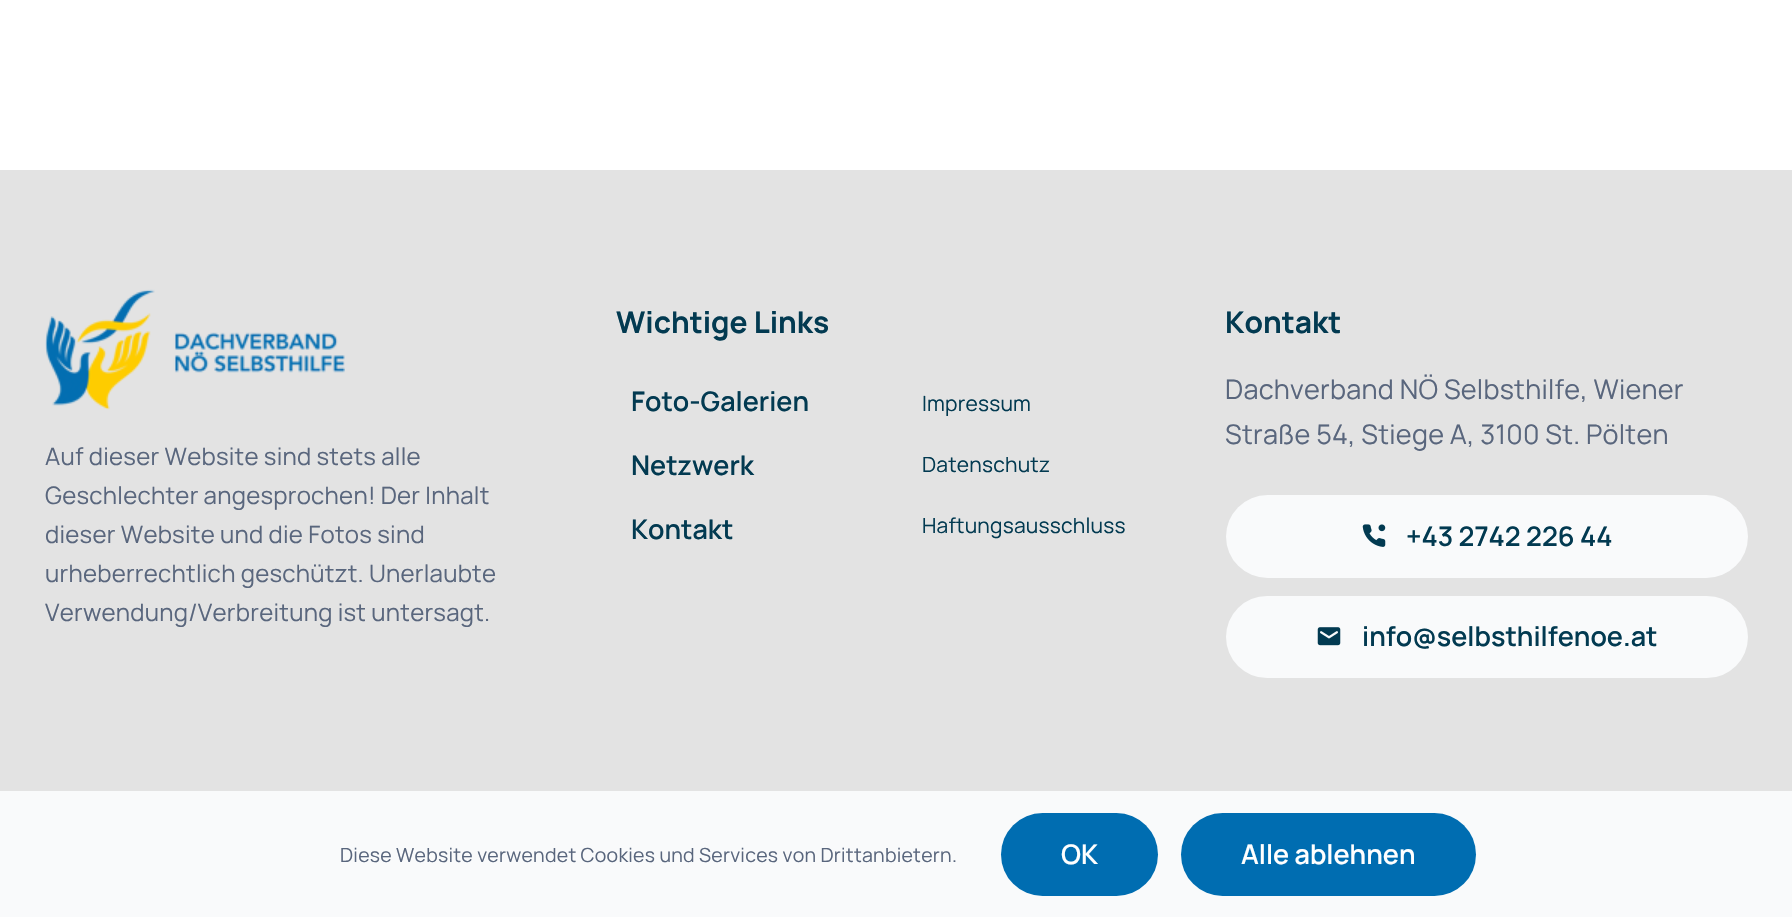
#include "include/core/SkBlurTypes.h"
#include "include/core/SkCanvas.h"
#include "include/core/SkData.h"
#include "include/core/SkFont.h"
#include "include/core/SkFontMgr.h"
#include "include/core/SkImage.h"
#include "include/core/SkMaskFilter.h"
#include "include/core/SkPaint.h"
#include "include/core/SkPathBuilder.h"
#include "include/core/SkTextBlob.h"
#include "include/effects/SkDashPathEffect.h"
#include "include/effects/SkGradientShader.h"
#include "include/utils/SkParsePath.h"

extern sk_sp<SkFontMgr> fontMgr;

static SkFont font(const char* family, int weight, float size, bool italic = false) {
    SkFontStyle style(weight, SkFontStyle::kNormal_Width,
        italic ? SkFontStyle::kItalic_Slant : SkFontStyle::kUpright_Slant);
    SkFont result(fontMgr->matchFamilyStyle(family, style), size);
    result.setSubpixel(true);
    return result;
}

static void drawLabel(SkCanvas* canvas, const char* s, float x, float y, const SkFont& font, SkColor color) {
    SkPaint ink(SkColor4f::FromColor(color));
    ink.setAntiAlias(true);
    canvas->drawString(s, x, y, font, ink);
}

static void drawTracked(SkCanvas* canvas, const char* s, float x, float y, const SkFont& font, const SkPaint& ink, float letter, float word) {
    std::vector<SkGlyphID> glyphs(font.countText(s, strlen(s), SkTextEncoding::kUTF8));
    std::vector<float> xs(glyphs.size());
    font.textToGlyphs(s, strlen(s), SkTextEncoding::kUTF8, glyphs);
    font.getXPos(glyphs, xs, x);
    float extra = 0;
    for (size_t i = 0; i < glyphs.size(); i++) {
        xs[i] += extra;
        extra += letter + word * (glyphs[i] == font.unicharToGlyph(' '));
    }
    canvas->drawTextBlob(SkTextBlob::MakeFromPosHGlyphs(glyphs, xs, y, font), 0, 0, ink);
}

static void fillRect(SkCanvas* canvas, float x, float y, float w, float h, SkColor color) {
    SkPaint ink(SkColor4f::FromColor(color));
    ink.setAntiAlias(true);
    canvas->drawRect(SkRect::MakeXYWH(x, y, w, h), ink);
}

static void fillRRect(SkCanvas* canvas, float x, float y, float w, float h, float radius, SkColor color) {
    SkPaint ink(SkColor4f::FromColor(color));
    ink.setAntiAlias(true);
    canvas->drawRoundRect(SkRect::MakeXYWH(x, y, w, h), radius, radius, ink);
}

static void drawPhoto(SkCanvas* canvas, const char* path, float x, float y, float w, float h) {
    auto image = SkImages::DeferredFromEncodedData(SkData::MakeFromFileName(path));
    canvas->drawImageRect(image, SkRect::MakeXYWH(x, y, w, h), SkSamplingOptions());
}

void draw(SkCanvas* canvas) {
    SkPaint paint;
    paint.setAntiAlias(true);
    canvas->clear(0xFFE3E3E3);
    fillRect(canvas, 0, 0, 1792, 170, 0xFFFFFFFF);
    drawPhoto(canvas, "assets/img1.png", 45, 289, 300, 121);
    SkFont font1 = font("Manrope", 400, 24);
    paint.setColor(0xFF59667D);
    drawTracked(canvas, "Auf dieser Website sind stets alle", 45, 465, font1, paint, 0.25f, 0);
    drawTracked(canvas, "Geschlechter angesprochen! Der Inhalt", 45, 504, font1, paint, 0.25f, 0);
    drawTracked(canvas, "dieser Website und die Fotos sind", 45, 543, font1, paint, 0.25f, 0);
    drawTracked(canvas, "urheberrechtlich geschützt. Unerlaubte", 45, 582, font1, paint, 0.25f, 0);
    drawTracked(canvas, "Verwendung/Verbreitung ist untersagt.", 45, 621, font1, paint, 0.25f, 0);
    SkFont font2 = font("Manrope", 700, 30);
    drawLabel(canvas, "Wichtige Links", 616, 333, font2, 0xFF023A51);
    SkFont font3 = font("Manrope", 600, 27);
    drawLabel(canvas, "Foto-Galerien", 631, 411, font3, 0xFF023A51);
    drawLabel(canvas, "Netzwerk", 631, 475, font3, 0xFF023A51);
    drawLabel(canvas, "Kontakt", 631, 539, font3, 0xFF023A51);
    SkFont font4 = font("Manrope", 400, 21);
    paint.setColor(0xFF023A51);
    drawTracked(canvas, "Impressum", 922, 411, font4, paint, 0.2f, 0);
    drawTracked(canvas, "Datenschutz", 922, 472, font4, paint, 0.2f, 0);
    drawTracked(canvas, "Haftungsausschluss", 922, 533, font4, paint, 0.2f, 0);
    drawLabel(canvas, "Kontakt", 1225, 333, font2, 0xFF023A51);
    SkFont font5 = font("Manrope", 400, 27);
    paint.setColor(0xFF59667D);
    drawTracked(canvas, "Dachverband NÖ Selbsthilfe, Wiener", 1225, 399, font5, paint, 0.25f, 0);
    drawTracked(canvas, "Straße 54, Stiege A, 3100 St. Pölten", 1225, 444, font5, paint, 0.25f, 0);
    fillRRect(canvas, 1226, 495, 522, 83, 41.5f, 0xFFF9FAFB);
    drawPhoto(canvas, "assets/img2.png", 1362, 524, 24, 23);
    drawLabel(canvas, "+43 2742 226 44", 1406, 546, font3, 0xFF023A51);
    fillRRect(canvas, 1226, 596, 522, 82, 41, 0xFFF9FAFB);
    drawPhoto(canvas, "assets/img3.png", 1317, 627, 24, 19);
    drawLabel(canvas, "info@selbsthilfenoe.at", 1362, 646, font3, 0xFF023A51);
    fillRect(canvas, 0, 791, 1792, 126, 0xFFF9FAFB);
    SkFont font6 = font("Manrope", 400, 19.5f);
    drawTracked(canvas, "Diese Website verwendet Cookies und Services von Drittanbietern.", 340, 862, font6, paint, 0.25f, 0);
    fillRRect(canvas, 1001, 813, 157, 83, 41.5f, 0xFF006DB1);
    drawLabel(canvas, "OK", 1061, 864, font3, 0xFFFFFFFF);
    fillRRect(canvas, 1181, 813, 295, 83, 41.5f, 0xFF006DB1);
    drawLabel(canvas, "Alle ablehnen", 1241, 864, font3, 0xFFFFFFFF);
}
